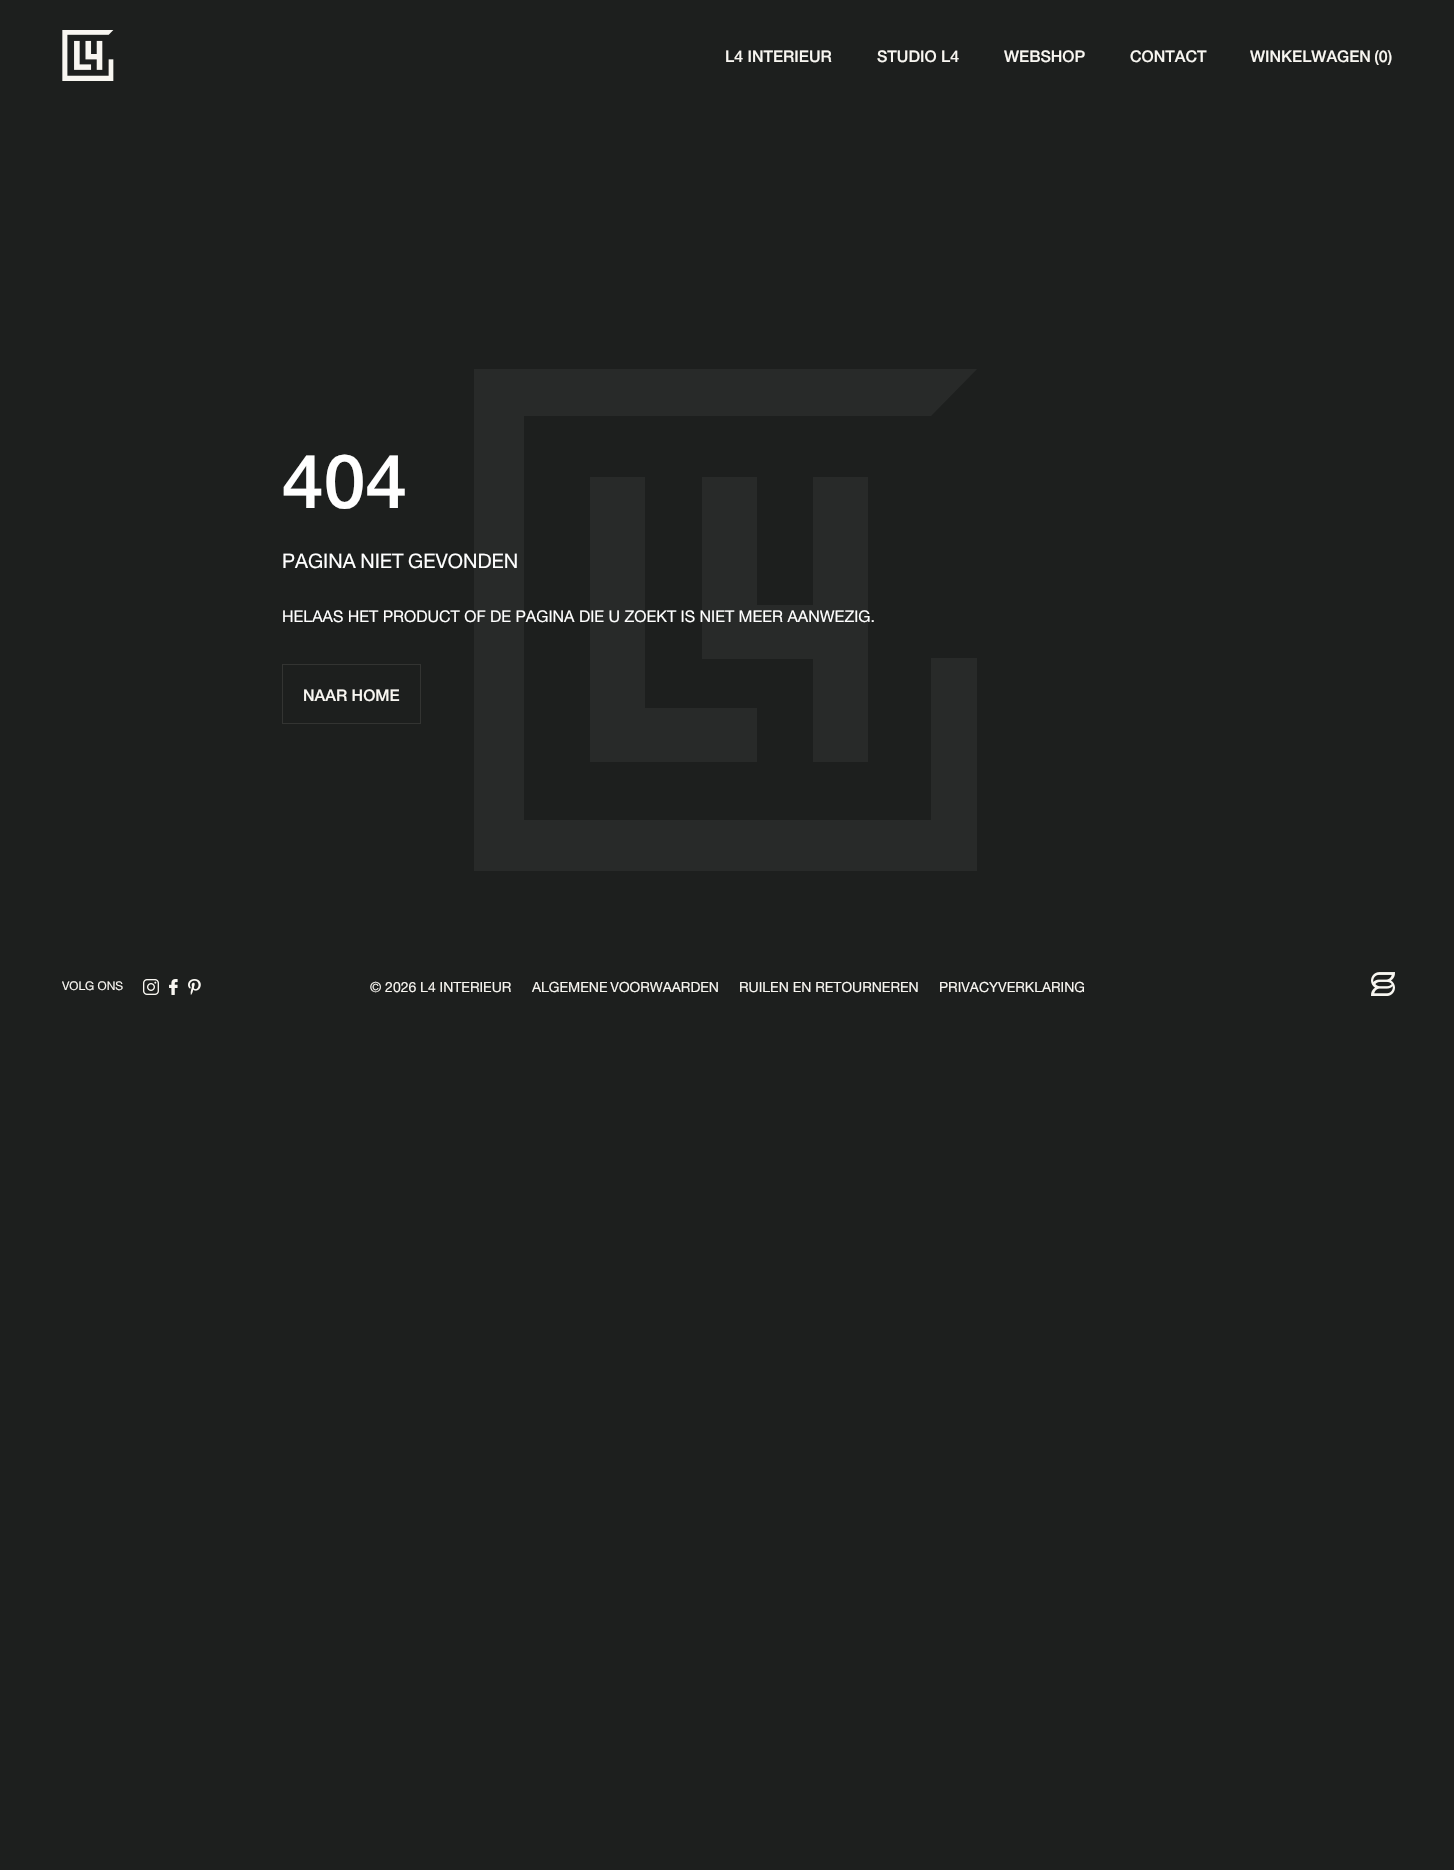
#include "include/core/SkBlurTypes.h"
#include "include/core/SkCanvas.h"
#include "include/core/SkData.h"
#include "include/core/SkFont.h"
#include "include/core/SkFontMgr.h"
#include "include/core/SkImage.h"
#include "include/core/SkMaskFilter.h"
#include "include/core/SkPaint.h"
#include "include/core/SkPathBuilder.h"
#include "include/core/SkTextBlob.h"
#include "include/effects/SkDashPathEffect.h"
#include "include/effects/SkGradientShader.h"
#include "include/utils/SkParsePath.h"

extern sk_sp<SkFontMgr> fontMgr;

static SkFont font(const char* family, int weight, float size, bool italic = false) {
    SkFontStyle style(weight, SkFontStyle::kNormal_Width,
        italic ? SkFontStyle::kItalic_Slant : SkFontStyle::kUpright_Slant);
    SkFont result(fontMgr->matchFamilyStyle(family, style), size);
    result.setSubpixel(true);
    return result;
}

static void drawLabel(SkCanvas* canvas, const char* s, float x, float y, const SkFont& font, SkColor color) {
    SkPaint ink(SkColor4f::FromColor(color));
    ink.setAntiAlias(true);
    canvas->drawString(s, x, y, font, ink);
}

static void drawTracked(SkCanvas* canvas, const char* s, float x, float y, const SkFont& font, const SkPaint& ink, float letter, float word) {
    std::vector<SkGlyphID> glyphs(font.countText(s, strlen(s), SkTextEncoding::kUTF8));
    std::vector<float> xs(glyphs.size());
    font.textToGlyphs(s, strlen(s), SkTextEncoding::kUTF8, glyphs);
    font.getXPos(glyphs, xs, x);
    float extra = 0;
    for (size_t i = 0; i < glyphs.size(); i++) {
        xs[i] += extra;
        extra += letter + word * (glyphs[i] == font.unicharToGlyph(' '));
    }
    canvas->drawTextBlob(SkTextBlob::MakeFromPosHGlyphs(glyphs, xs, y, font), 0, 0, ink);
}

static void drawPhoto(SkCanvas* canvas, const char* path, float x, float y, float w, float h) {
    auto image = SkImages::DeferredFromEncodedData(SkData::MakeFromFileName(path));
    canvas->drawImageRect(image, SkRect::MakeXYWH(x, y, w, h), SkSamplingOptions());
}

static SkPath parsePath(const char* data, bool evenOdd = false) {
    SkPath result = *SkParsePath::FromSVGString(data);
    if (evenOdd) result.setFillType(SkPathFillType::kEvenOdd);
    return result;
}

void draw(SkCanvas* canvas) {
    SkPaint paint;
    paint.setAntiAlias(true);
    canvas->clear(0xFF1D1F1E);
    drawPhoto(canvas, "assets/img1.png", 62, 30, 52, 51);
    SkFont font1 = font("Helvetica Neue", 500, 16);
    drawLabel(canvas, "L4 INTERIEUR", 725, 62, font1, 0xFFF8F6F1);
    drawLabel(canvas, "STUDIO L4", 877, 62, font1, 0xFFF8F6F1);
    drawLabel(canvas, "WEBSHOP", 1004, 62, font1, 0xFFF8F6F1);
    drawLabel(canvas, "CONTACT", 1130, 62, font1, 0xFFF8F6F1);
    paint.setColor(0xFFF8F6F1);
    drawTracked(canvas, "WINKELWAGEN (0)", 1250, 62, font1, paint, 0, -1);
    canvas->save();
    canvas->clipRect(SkRect::MakeXYWH(472, 369, 510, 502));
    paint.setColor(0xFF282A29);
    canvas->drawPath(parsePath("M977 369L931 416H524V820H931V658H977V872H474V369ZM757 477V605H813V477H868V762H813V659H702V477ZM645 477V708H757V762H590V477Z", true), paint);
    canvas->restore();
    SkFont font2 = font("Helvetica Neue", 500, 75);
    drawLabel(canvas, "404", 282, 508, font2, 0xFFFFFFFF);
    SkFont font3 = font("Helvetica Neue", 400, 20);
    paint.setColor(0xFFFFFFFF);
    drawTracked(canvas, "PAGINA NIET GEVONDEN", 282, 568, font3, paint, 0, -1);
    SkFont font4 = font("Helvetica Neue", 400, 16);
    drawLabel(canvas, "HELAAS HET PRODUCT OF DE PAGINA DIE U ZOEKT IS NIET MEER AANWEZIG.", 282, 622, font4, 0xFFFFFFFF);
    paint.setStroke(true);
    paint.setStrokeWidth(1);
    paint.setColor(0xFF333432);
    canvas->drawRect(SkRect::MakeXYWH(282.5f, 664.5f, 138, 59), paint);
    drawLabel(canvas, "NAAR HOME", 303, 701, font1, 0xFFF8F6F1);
    SkFont font5 = font("Helvetica Neue", 400, 12);
    drawLabel(canvas, "VOLG ONS", 62, 990, font5, 0xFFF8F6F1);
    drawPhoto(canvas, "assets/img2.png", 143, 979, 16, 16);
    drawPhoto(canvas, "assets/img3.png", 169, 979, 9, 16);
    drawPhoto(canvas, "assets/img4.png", 188, 979, 13, 16);
    SkFont font6 = font("Helvetica Neue", 400, 14);
    drawLabel(canvas, "© 2026 L4 INTERIEUR", 370, 992, font6, 0xFFF8F6F1);
    paint.setStroke(false);
    paint.setColor(0xFFF8F6F1);
    drawTracked(canvas, "ALGEMENE VOORWAARDEN", 532, 992, font6, paint, 0, -1);
    drawLabel(canvas, "RUILEN EN RETOURNEREN", 739, 992, font6, 0xFFF8F6F1);
    drawLabel(canvas, "PRIVACYVERKLARING", 939, 992, font6, 0xFFF8F6F1);
    drawPhoto(canvas, "assets/img5.png", 1371, 972, 24, 24);
}
